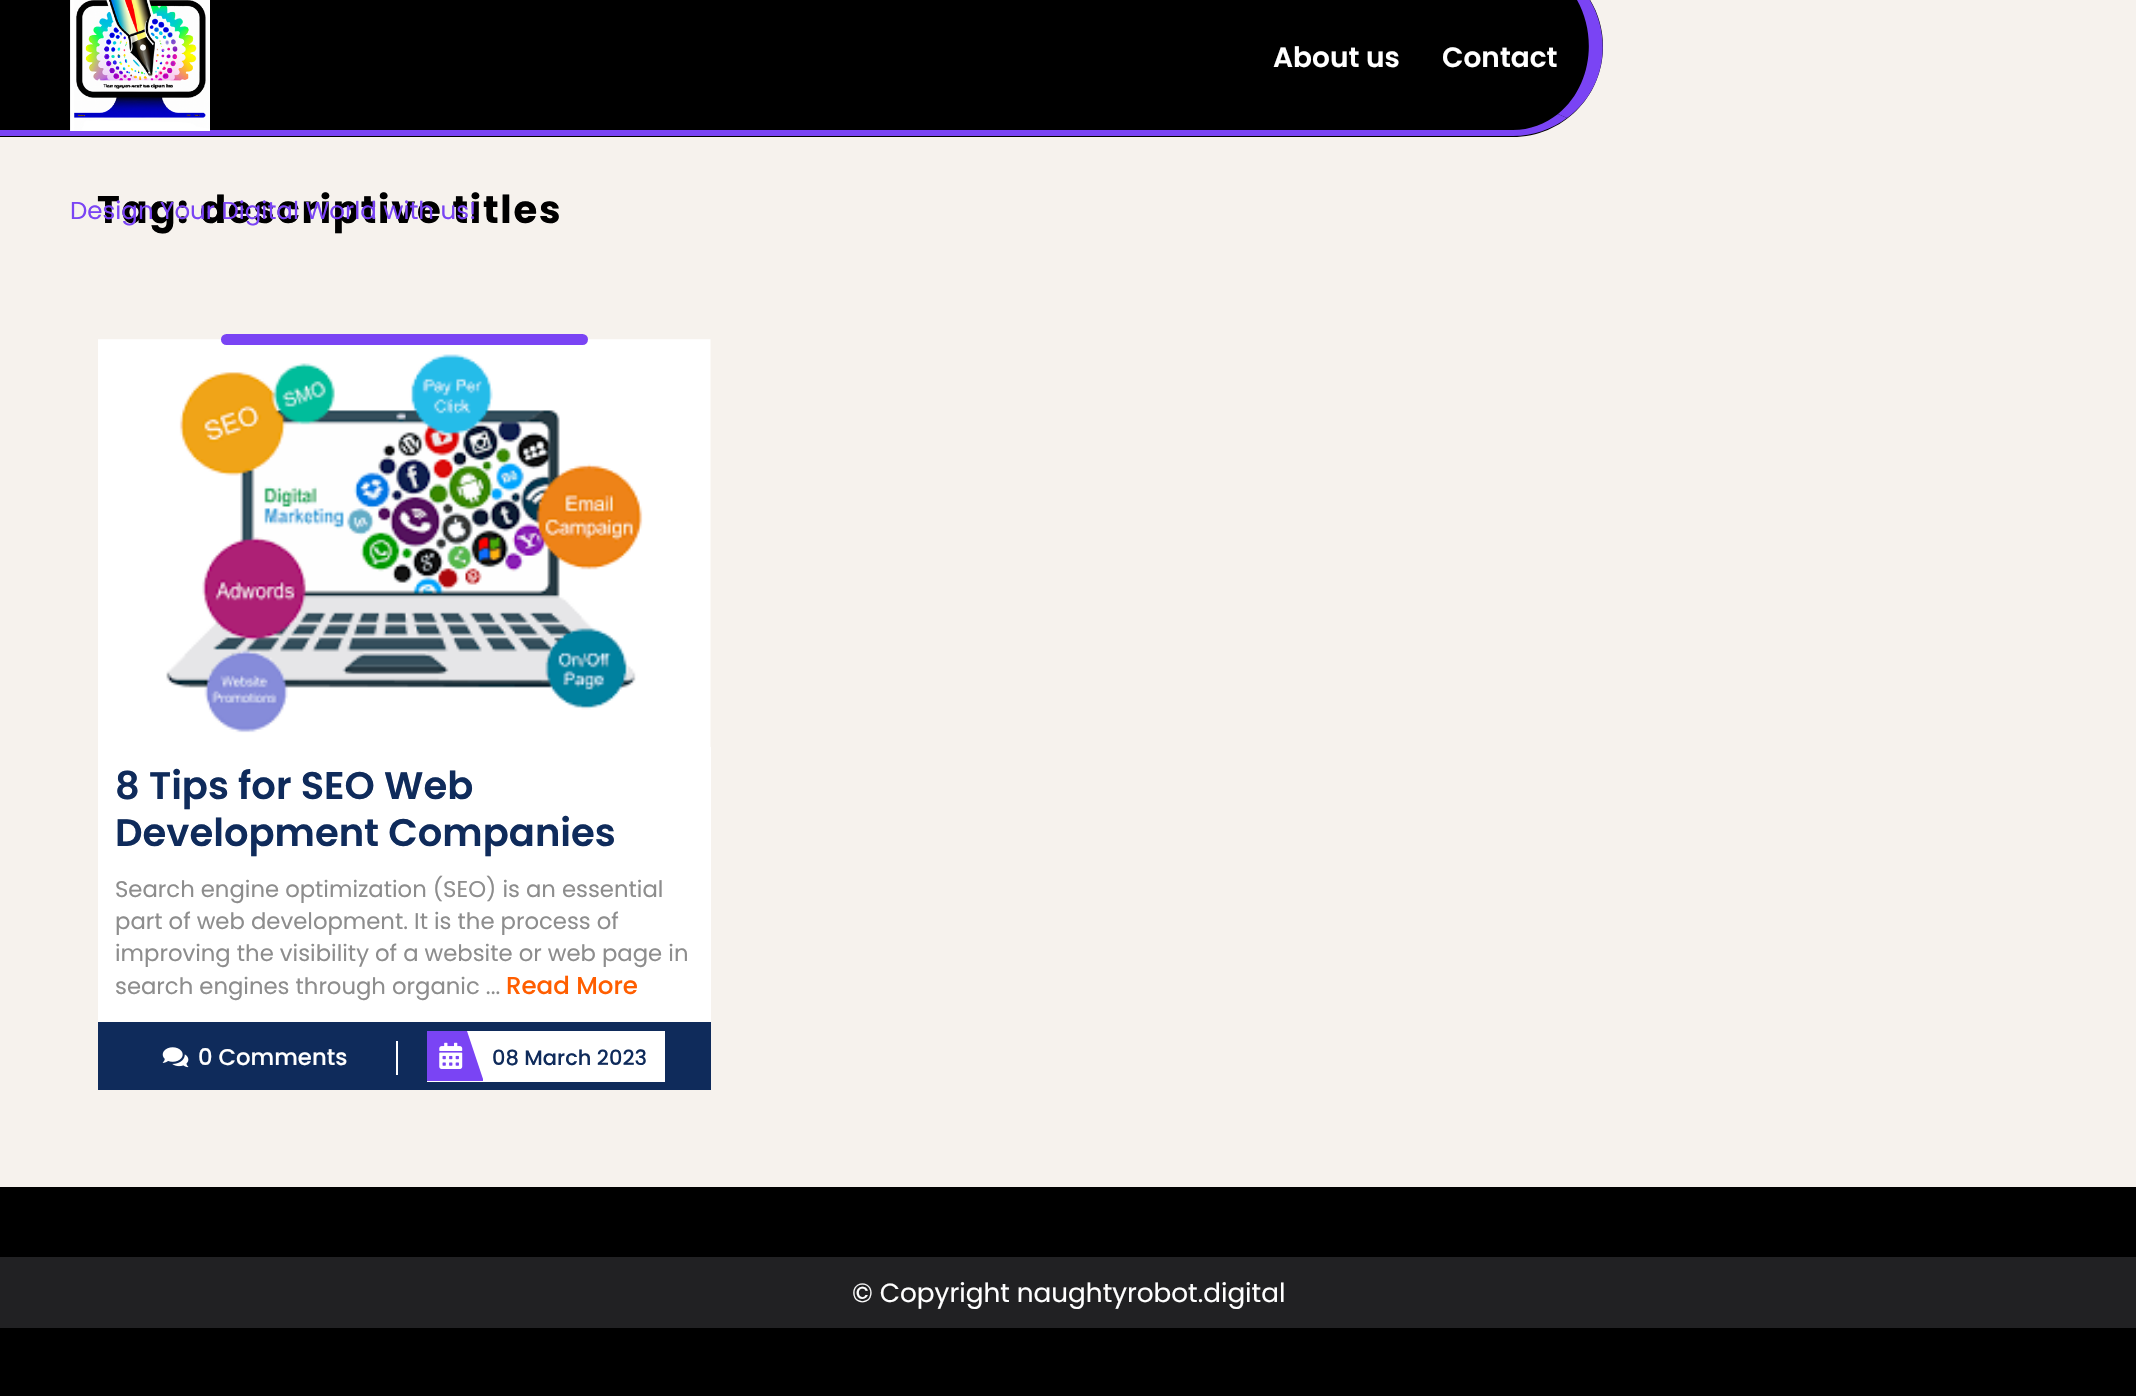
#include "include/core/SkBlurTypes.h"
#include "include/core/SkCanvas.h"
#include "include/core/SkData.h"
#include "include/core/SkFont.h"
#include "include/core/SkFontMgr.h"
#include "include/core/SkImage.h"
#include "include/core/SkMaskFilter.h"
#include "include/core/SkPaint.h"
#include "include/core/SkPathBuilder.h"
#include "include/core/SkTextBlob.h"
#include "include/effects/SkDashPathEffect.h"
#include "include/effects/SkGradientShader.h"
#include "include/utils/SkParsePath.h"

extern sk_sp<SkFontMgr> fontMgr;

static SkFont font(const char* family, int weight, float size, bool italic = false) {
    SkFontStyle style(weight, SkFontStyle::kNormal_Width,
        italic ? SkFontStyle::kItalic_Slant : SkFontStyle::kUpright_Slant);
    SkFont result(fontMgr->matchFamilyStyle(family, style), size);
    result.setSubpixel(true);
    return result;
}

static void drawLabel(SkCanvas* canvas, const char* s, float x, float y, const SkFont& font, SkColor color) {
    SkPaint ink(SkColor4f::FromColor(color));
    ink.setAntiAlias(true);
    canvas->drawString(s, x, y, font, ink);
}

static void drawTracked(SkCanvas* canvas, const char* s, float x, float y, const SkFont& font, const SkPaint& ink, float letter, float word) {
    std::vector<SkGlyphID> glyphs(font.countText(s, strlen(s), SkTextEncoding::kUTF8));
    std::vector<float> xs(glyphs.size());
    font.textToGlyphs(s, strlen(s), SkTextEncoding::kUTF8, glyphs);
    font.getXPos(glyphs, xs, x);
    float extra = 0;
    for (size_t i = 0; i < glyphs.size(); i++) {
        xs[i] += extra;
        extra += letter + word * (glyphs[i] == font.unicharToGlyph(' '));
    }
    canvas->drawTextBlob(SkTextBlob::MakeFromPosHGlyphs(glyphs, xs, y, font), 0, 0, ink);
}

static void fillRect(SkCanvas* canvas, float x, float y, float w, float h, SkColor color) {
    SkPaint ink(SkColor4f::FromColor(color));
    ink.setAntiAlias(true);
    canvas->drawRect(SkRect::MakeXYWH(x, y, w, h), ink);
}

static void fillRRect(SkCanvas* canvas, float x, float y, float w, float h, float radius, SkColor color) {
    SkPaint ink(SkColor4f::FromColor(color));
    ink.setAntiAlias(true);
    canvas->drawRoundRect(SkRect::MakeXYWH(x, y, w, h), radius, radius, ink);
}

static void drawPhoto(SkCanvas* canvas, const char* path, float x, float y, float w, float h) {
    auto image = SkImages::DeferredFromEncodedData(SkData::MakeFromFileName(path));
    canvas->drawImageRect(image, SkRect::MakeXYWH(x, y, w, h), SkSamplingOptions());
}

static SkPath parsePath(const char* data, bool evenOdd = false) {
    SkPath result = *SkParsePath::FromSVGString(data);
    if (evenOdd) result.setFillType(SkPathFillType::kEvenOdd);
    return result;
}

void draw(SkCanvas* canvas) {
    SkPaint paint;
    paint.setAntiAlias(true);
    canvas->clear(0xFFF6F2ED);
    paint.setColor(0xFF000000);
    canvas->drawPath(parsePath("M0-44H1512.5C1562.5-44 1603-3.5 1603 46.5C1603 96.5 1562.5 137 1512.5 137H0Z"), paint);
    paint.setColor(0xFF7A44F4);
    canvas->drawPath(parsePath("M1558 114C1603 77 1598 0 1548-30L1557-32C1613 0 1619 80 1567 118Z"), paint);
    canvas->drawPath(parsePath("M0 130V136H1513C1533 136 1552 129 1567 118L1558 114C1545 124 1530 130 1513 130Z"), paint);
    SkFont font1 = font("Poppins", 600, 28);
    drawLabel(canvas, "About us", 1273, 67, font1, 0xFFFFFFFF);
    drawLabel(canvas, "Contact", 1442, 67, font1, 0xFFFFFFFF);
    drawPhoto(canvas, "assets/img1.png", 70, 0, 140, 131);
    SkFont font2 = font("Poppins", 700, 38.5f);
    paint.setColor(0xFF000000);
    drawTracked(canvas, "Tag: descriptive titles", 97, 223, font2, paint, 1.75f, 0);
    SkFont font3 = font("Poppins", 400, 24.5f);
    drawLabel(canvas, "Design Your Digital World with us!", 70, 219, font3, 0xFF7A44F4);
    drawPhoto(canvas, "assets/img2.png", 98, 339, 613, 408);
    fillRRect(canvas, 221, 334, 367, 11, 5.5f, 0xFF7A44F4);
    fillRect(canvas, 98, 747, 613, 275, 0xFFFFFFFF);
    SkFont font4 = font("Poppins", 600, 38.5f);
    drawLabel(canvas, "8 Tips for SEO Web", 115, 799, font4, 0xFF0F2B5B);
    drawLabel(canvas, "Development Companies", 115, 846, font4, 0xFF0F2B5B);
    SkFont font5 = font("Poppins", 400, 22.75f);
    drawLabel(canvas, "Search engine optimization (SEO) is an essential", 115, 897, font5, 0xFF8D8D8D);
    drawLabel(canvas, "part of web development. It is the process of", 115, 929, font5, 0xFF8D8D8D);
    drawLabel(canvas, "improving the visibility of a website or web page in", 115, 961, font5, 0xFF8D8D8D);
    drawLabel(canvas, "search engines through organic ...", 115, 994, font5, 0xFF8D8D8D);
    SkFont font6 = font("Poppins", 500, 24.5f);
    drawLabel(canvas, "Read More", 506, 994, font6, 0xFFFF5E00);
    fillRect(canvas, 98, 1022, 613, 68, 0xFF0F2B5B);
    fillRect(canvas, 396, 1041, 2, 34, 0xFFFFFFFF);
    drawPhoto(canvas, "assets/img3.png", 162, 1047, 27, 21);
    SkFont font7 = font("Poppins", 500, 22.75f);
    drawLabel(canvas, "0 Comments", 198, 1065, font7, 0xFFFFFFFF);
    fillRect(canvas, 427, 1031, 238, 51, 0xFFFFFFFF);
    paint.setColor(0xFF7A44F4);
    canvas->drawPath(parsePath("M483 1081H427V1031H467L483 1079Z"), paint);
    drawPhoto(canvas, "assets/img4.png", 439, 1042, 24, 27);
    SkFont font8 = font("Poppins", 500, 21);
    drawLabel(canvas, "08 March 2023", 492, 1065, font8, 0xFF0F2B5B);
    fillRect(canvas, 0, 1187, 2136, 209, 0xFF000000);
    fillRect(canvas, 0, 1257, 2136, 71, 0xFF212123);
    SkFont font9 = font("Poppins", 400, 26.25f);
    drawLabel(canvas, "© Copyright naughtyrobot.digital", 852, 1302, font9, 0xFFFFFFFF);
}
